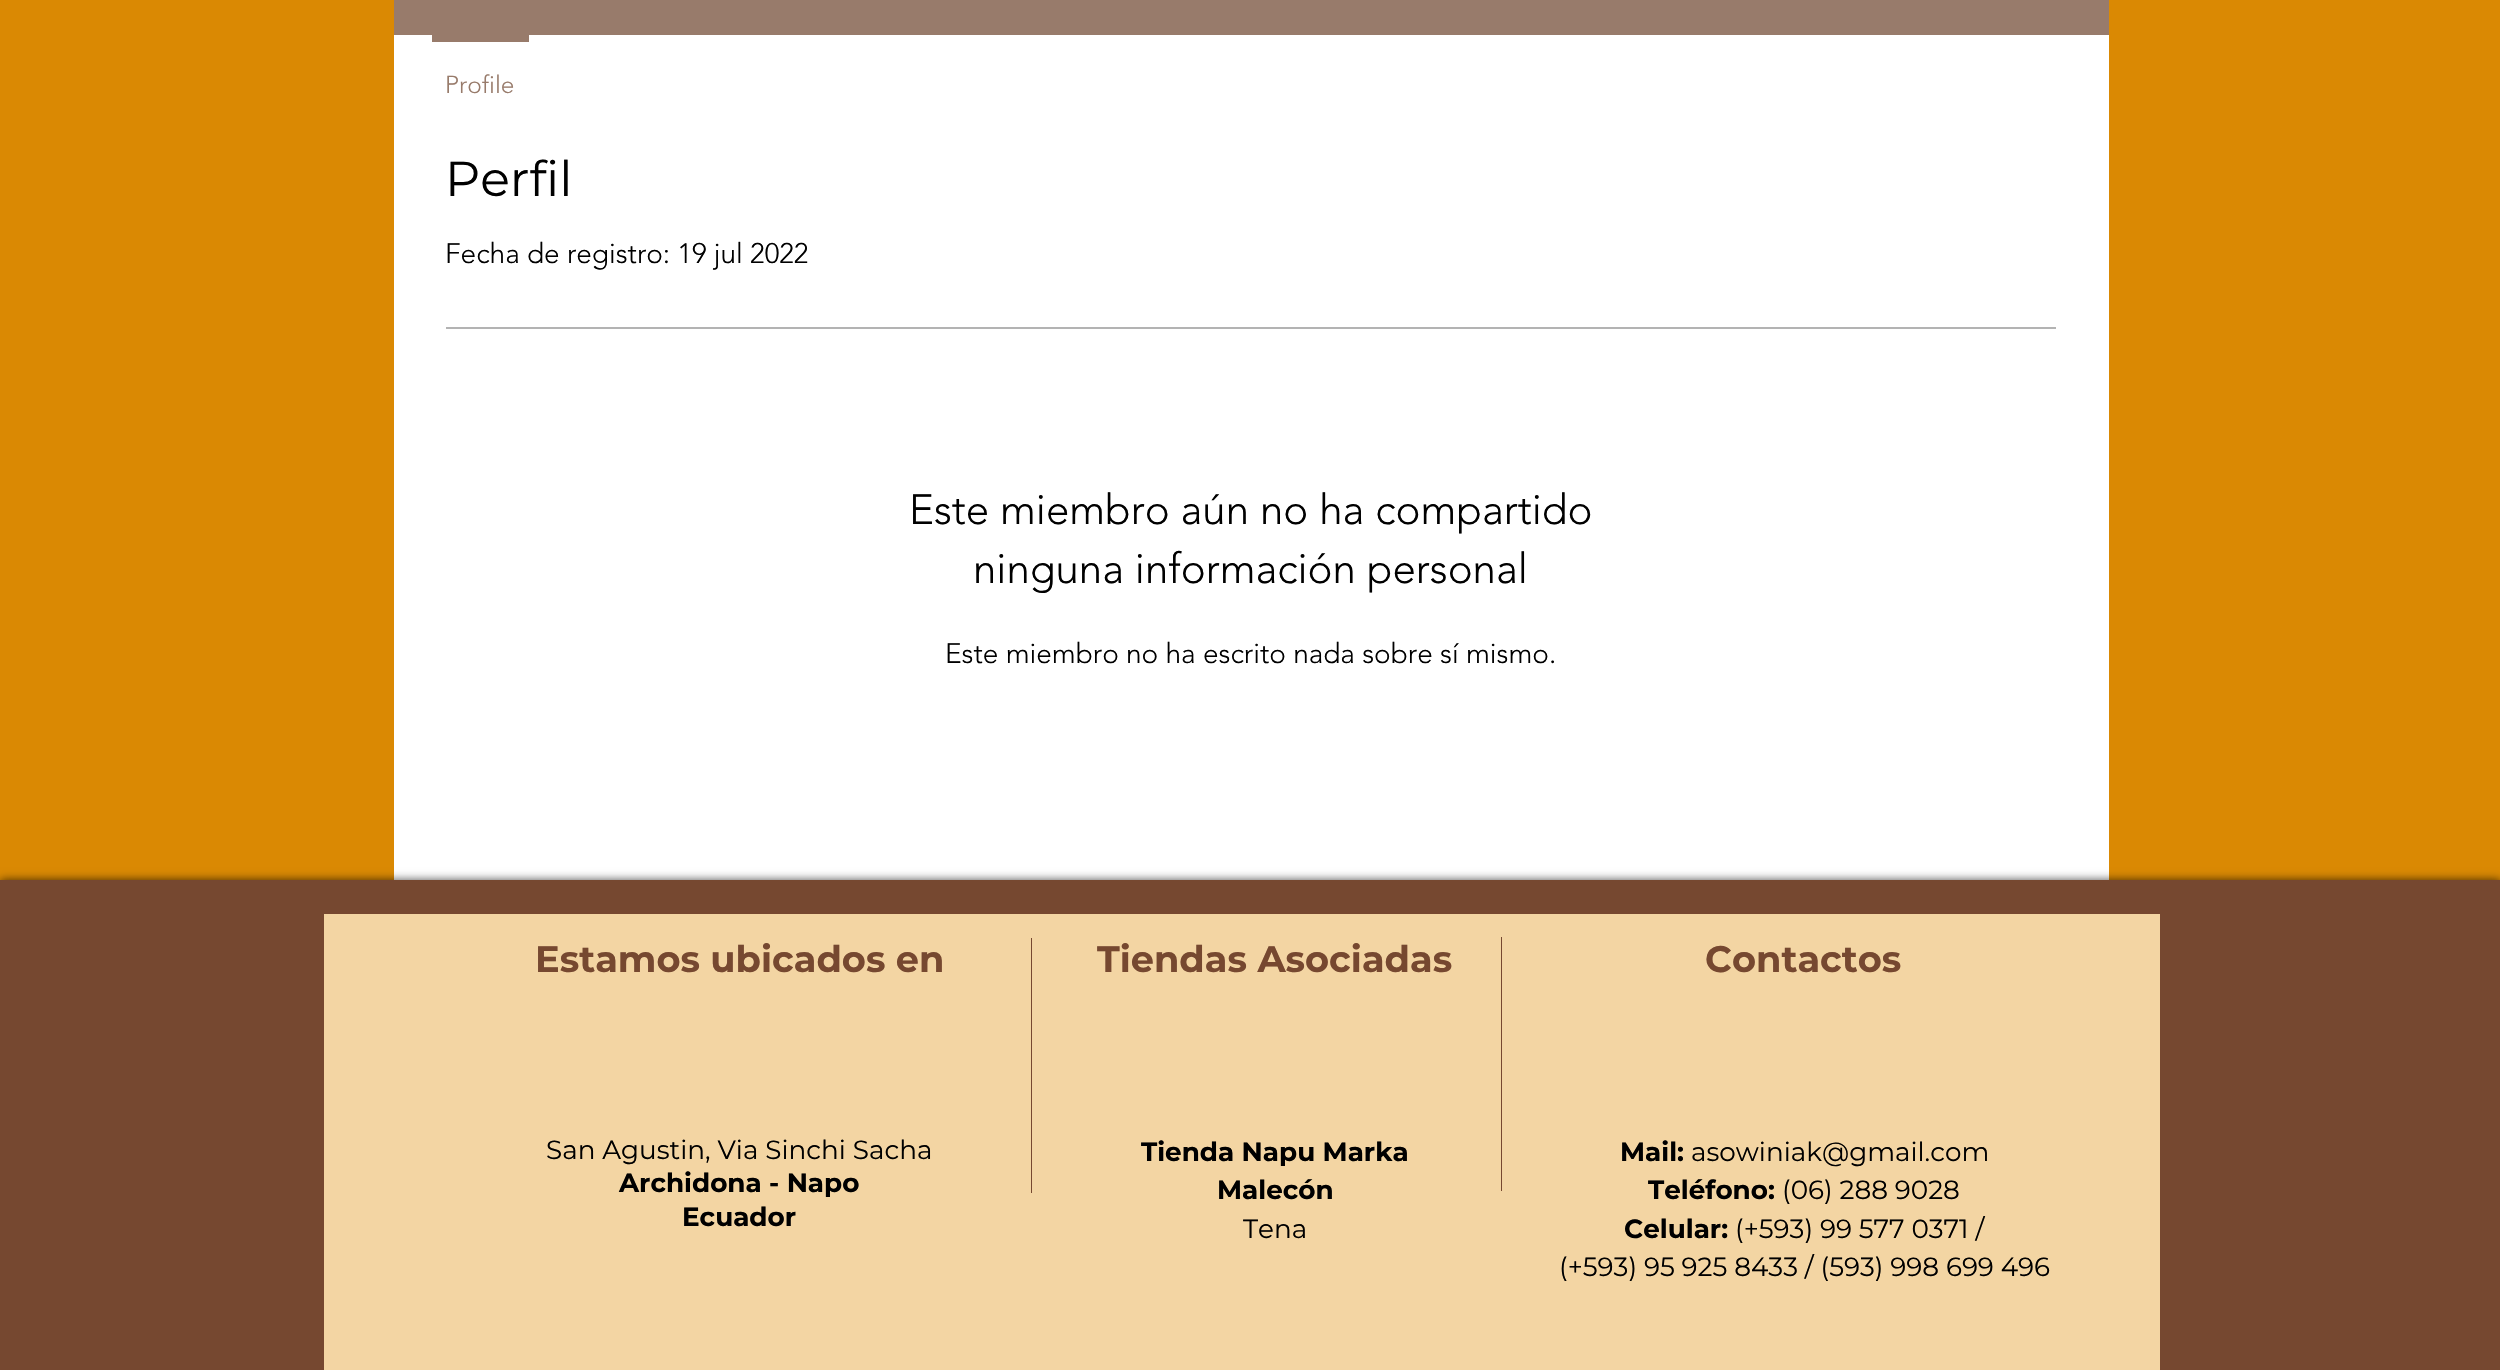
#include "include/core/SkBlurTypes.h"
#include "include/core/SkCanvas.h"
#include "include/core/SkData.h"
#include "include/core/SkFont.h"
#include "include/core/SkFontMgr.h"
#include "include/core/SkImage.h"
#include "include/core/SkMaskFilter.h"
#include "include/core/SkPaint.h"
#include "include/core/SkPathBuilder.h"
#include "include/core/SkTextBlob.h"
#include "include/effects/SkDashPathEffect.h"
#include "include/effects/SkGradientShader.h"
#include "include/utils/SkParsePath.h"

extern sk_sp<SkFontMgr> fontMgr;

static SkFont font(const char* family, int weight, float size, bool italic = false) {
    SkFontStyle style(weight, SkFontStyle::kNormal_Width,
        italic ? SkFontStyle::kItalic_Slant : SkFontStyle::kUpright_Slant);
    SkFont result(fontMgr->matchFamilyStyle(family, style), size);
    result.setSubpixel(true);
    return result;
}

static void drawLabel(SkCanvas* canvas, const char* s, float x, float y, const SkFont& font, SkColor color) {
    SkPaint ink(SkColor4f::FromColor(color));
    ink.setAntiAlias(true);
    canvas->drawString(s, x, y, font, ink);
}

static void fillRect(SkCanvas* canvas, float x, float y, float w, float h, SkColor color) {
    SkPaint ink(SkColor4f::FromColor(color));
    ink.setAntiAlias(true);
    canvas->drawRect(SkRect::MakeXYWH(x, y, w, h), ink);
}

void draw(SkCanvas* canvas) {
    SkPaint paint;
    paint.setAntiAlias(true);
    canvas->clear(0xFFDA8903);
    fillRect(canvas, 394, 0, 1715, 35, 0xFF987B6B);
    fillRect(canvas, 394, 35, 1715, 845, 0xFFFFFFFF);
    fillRect(canvas, 432, 35, 97, 7, 0xFF987B6B);
    SkFont font1 = font("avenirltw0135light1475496", 300, 24.5f);
    drawLabel(canvas, "Profile", 445, 93, font1, 0xFF987B6B);
    SkFont font2 = font("Montserrat", 400, 49);
    drawLabel(canvas, "Perfil", 445, 196, font2, 0xFF000000);
    SkFont font3 = font("avenirltw0135light1475496", 300, 28);
    drawLabel(canvas, "Fecha de registro: 19 jul 2022", 445, 263, font3, 0xFF000000);
    fillRect(canvas, 446, 327, 1610, 2, 0xFFB3B3B3);
    SkFont font4 = font("avenirltw0135light1475496", 300, 42);
    drawLabel(canvas, "Este miembro aún no ha compartido", 909, 524, font4, 0xFF000000);
    drawLabel(canvas, "ninguna información personal", 973, 583, font4, 0xFF000000);
    drawLabel(canvas, "Este miembro no ha escrito nada sobre sí mismo.", 945, 663, font3, 0xFF000000);
    paint.setColor(0xB3000000);
    paint.setMaskFilter(SkMaskFilter::MakeBlur(kNormal_SkBlurStyle, 4.5f));
    canvas->drawRect(SkRect::MakeXYWH(0, 880, 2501, 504), paint);
    paint.setMaskFilter(nullptr);
    fillRect(canvas, 0, 880, 2500, 490, 0xFF764830);
    fillRect(canvas, 324, 914, 1836, 456, 0xFFF3D5A3);
    SkFont font5 = font("Montserrat", 700, 36.75f);
    drawLabel(canvas, "Estamos ubicados en", 535, 972, font5, 0xFF764830);
    fillRect(canvas, 1031, 938, 1, 255, 0xFF764830);
    drawLabel(canvas, "Tiendas Asociadas", 1097, 972, font5, 0xFF764830);
    fillRect(canvas, 1501, 937, 1, 254, 0xFF764830);
    drawLabel(canvas, "Contactos", 1705, 972, font5, 0xFF764830);
    SkFont font6 = font("Montserrat", 400, 26.25f);
    drawLabel(canvas, "San Agustin, Via Sinchi Sacha", 546, 1159, font6, 0xFF000000);
    SkFont font7 = font("Montserrat", 700, 26.25f);
    drawLabel(canvas, "Archidona - Napo", 619, 1192, font7, 0xFF000000);
    drawLabel(canvas, "Ecuador", 682, 1226, font7, 0xFF000000);
    drawLabel(canvas, "Tienda Napu Marka", 1141, 1161, font7, 0xFF000000);
    drawLabel(canvas, "Malecón", 1217, 1199, font7, 0xFF000000);
    drawLabel(canvas, "Tena", 1243, 1238, font6, 0xFF000000);
    drawLabel(canvas, "Mail:", 1620, 1161, font7, 0xFF000000);
    drawLabel(canvas, "asowiniak@gmail.com", 1691, 1161, font6, 0xFF000000);
    drawLabel(canvas, "Teléfono:", 1648, 1199, font7, 0xFF000000);
    drawLabel(canvas, "(06) 288 9028", 1782, 1199, font6, 0xFF000000);
    drawLabel(canvas, "Celular:", 1624, 1238, font7, 0xFF000000);
    drawLabel(canvas, "(+593) 99 577 0371 /", 1735, 1238, font6, 0xFF000000);
    drawLabel(canvas, "(+593) 95 925 8433 / (593) 998 699 496", 1559, 1276, font6, 0xFF000000);
}
